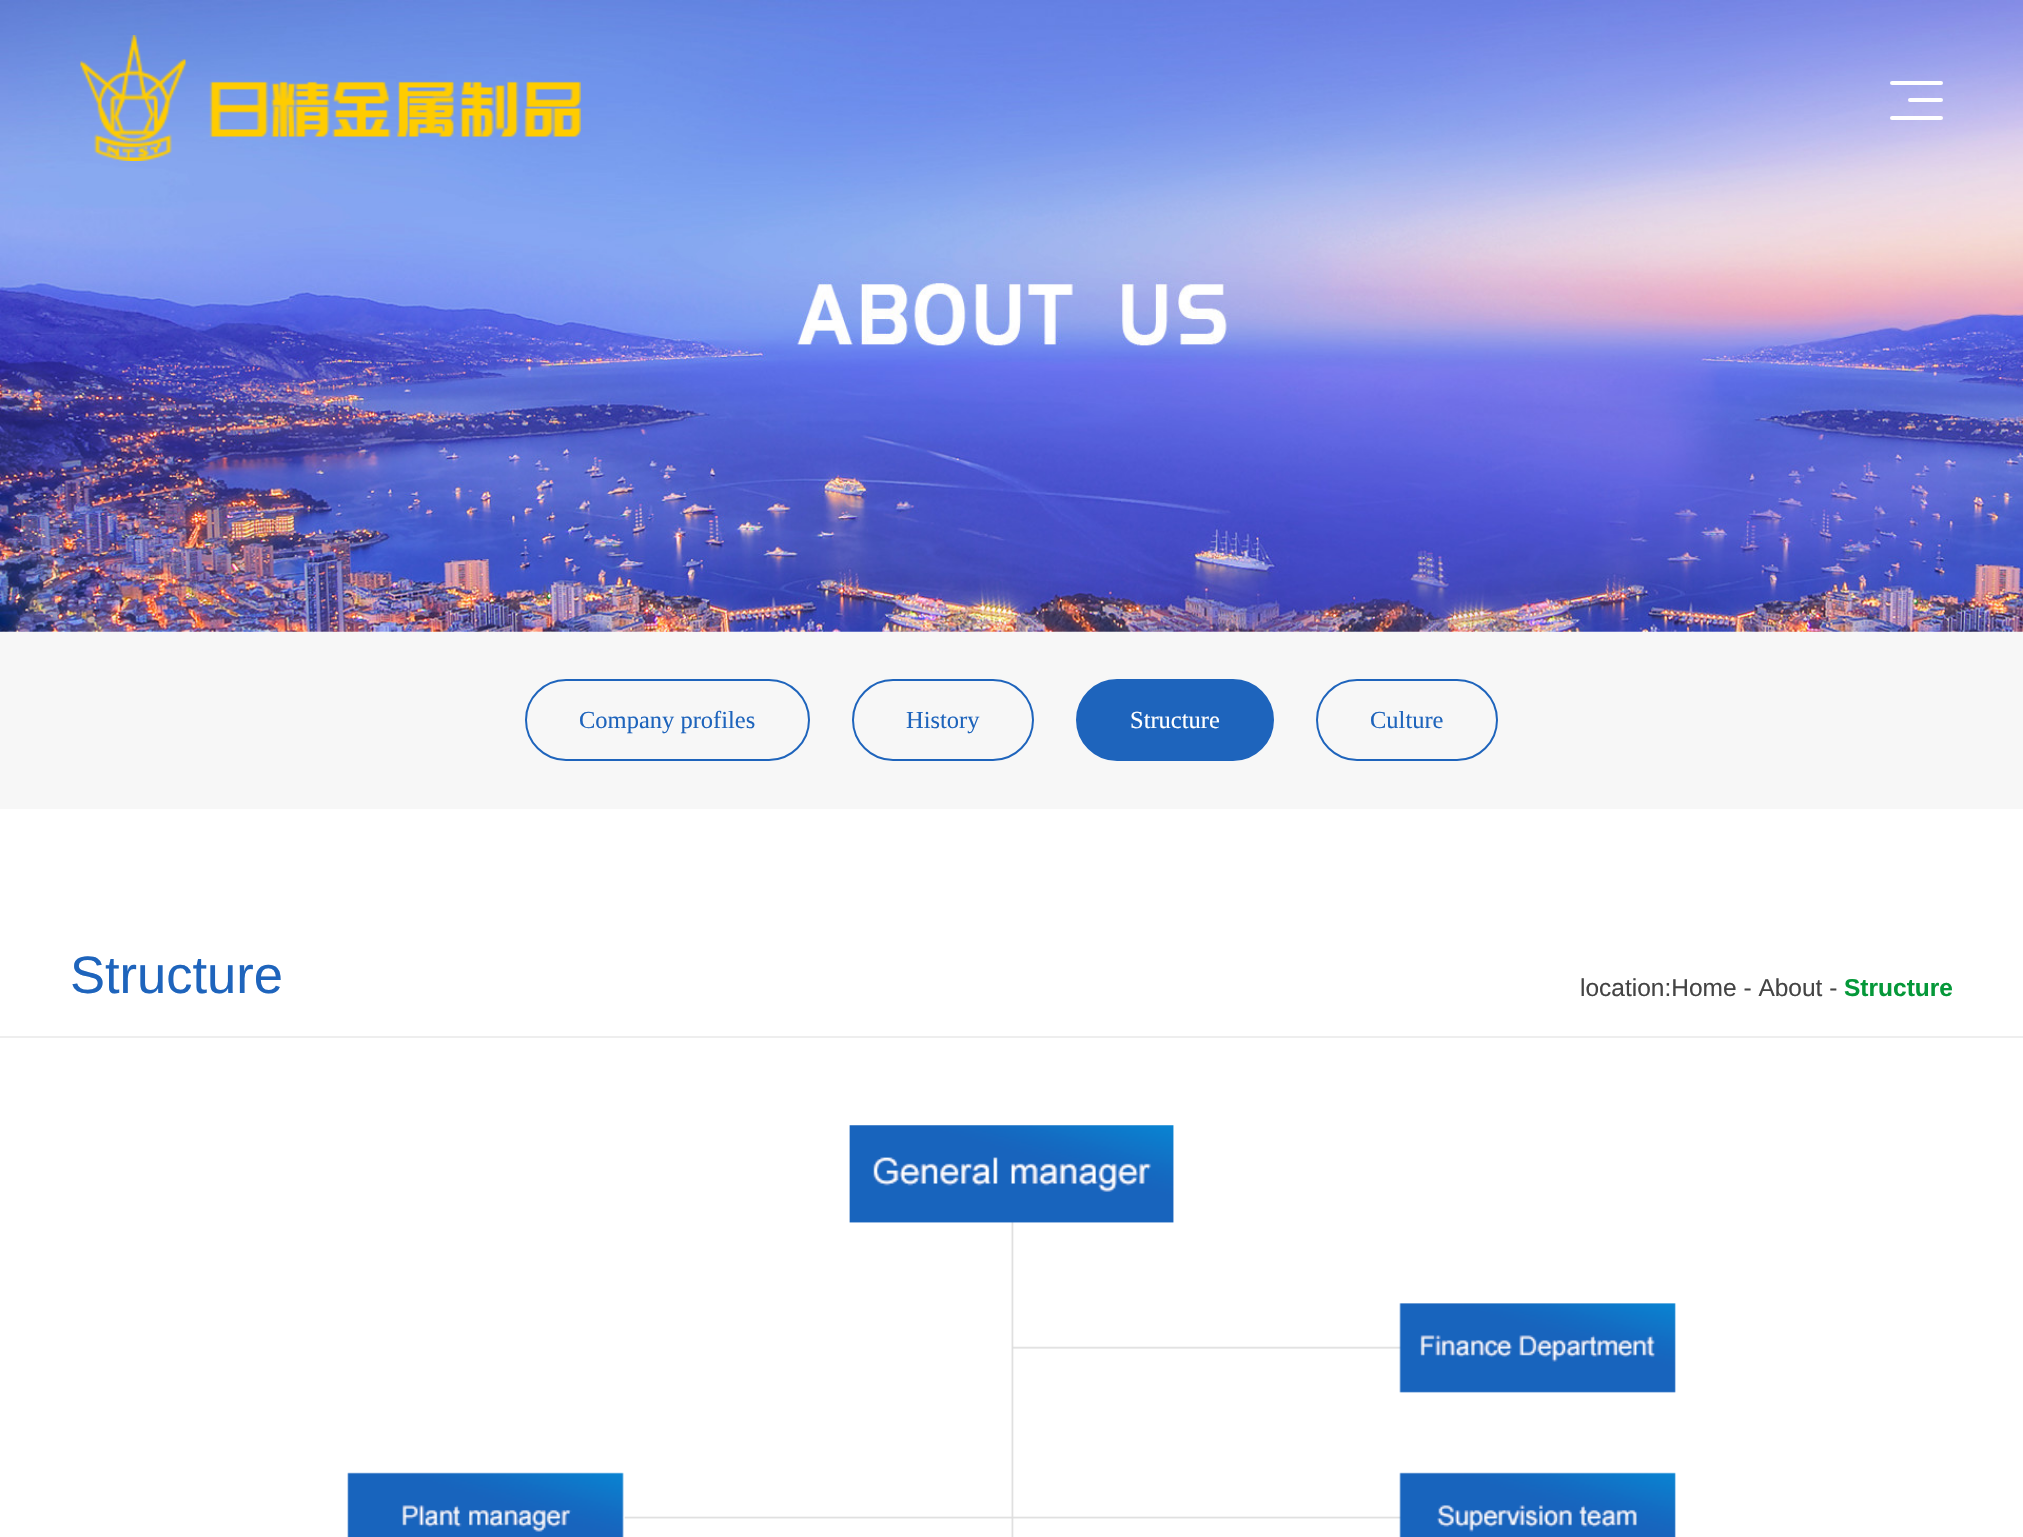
#include "include/core/SkBlurTypes.h"
#include "include/core/SkCanvas.h"
#include "include/core/SkData.h"
#include "include/core/SkFont.h"
#include "include/core/SkFontMgr.h"
#include "include/core/SkImage.h"
#include "include/core/SkMaskFilter.h"
#include "include/core/SkPaint.h"
#include "include/core/SkPathBuilder.h"
#include "include/core/SkTextBlob.h"
#include "include/effects/SkDashPathEffect.h"
#include "include/effects/SkGradientShader.h"
#include "include/utils/SkParsePath.h"

extern sk_sp<SkFontMgr> fontMgr;

static SkFont font(const char* family, int weight, float size, bool italic = false) {
    SkFontStyle style(weight, SkFontStyle::kNormal_Width,
        italic ? SkFontStyle::kItalic_Slant : SkFontStyle::kUpright_Slant);
    SkFont result(fontMgr->matchFamilyStyle(family, style), size);
    result.setSubpixel(true);
    return result;
}

static void drawLabel(SkCanvas* canvas, const char* s, float x, float y, const SkFont& font, SkColor color) {
    SkPaint ink(SkColor4f::FromColor(color));
    ink.setAntiAlias(true);
    canvas->drawString(s, x, y, font, ink);
}

static void fillRect(SkCanvas* canvas, float x, float y, float w, float h, SkColor color) {
    SkPaint ink(SkColor4f::FromColor(color));
    ink.setAntiAlias(true);
    canvas->drawRect(SkRect::MakeXYWH(x, y, w, h), ink);
}

static void fillRRect(SkCanvas* canvas, float x, float y, float w, float h, float radius, SkColor color) {
    SkPaint ink(SkColor4f::FromColor(color));
    ink.setAntiAlias(true);
    canvas->drawRoundRect(SkRect::MakeXYWH(x, y, w, h), radius, radius, ink);
}

static void drawPhoto(SkCanvas* canvas, const char* path, float x, float y, float w, float h) {
    auto image = SkImages::DeferredFromEncodedData(SkData::MakeFromFileName(path));
    canvas->drawImageRect(image, SkRect::MakeXYWH(x, y, w, h), SkSamplingOptions());
}

void draw(SkCanvas* canvas) {
    SkPaint paint;
    paint.setAntiAlias(true);
    canvas->clear(0xFFFFFFFF);
    drawPhoto(canvas, "assets/img1.png", 0, 0, 2023, 632);
    drawPhoto(canvas, "assets/img2.png", 80, 35, 501, 126);
    fillRRect(canvas, 1890, 81, 53, 4, 2, 0xFFFFFFFF);
    fillRRect(canvas, 1908, 98, 35, 4, 2, 0xFFFFFFFF);
    fillRRect(canvas, 1890, 116, 53, 4, 2, 0xFFFFFFFF);
    fillRect(canvas, 0, 632, 2023, 177, 0xFFF7F7F7);
    paint.setStroke(true);
    paint.setStrokeWidth(2);
    paint.setColor(0xFF1E64BC);
    canvas->drawRoundRect(SkRect::MakeXYWH(526, 680, 283, 80), 40, 40, paint);
    SkFont font1 = font("Liberation Serif", 400, 24.5f);
    drawLabel(canvas, "Company profiles", 579, 728, font1, 0xFF1E64BC);
    canvas->drawRoundRect(SkRect::MakeXYWH(853, 680, 180, 80), 40, 40, paint);
    drawLabel(canvas, "History", 906, 728, font1, 0xFF1E64BC);
    paint.setStroke(false);
    canvas->drawRoundRect(SkRect::MakeXYWH(1077, 680, 196, 80), 40, 40, paint);
    paint.setStroke(true);
    canvas->drawRoundRect(SkRect::MakeXYWH(1077, 680, 196, 80), 40, 40, paint);
    drawLabel(canvas, "Structure", 1130, 728, font1, 0xFFFFFFFF);
    canvas->drawRoundRect(SkRect::MakeXYWH(1317, 680, 180, 80), 40, 40, paint);
    drawLabel(canvas, "Culture", 1370, 728, font1, 0xFF1E64BC);
    fillRect(canvas, 0, 1036, 2023, 2, 0xFFEEEEEE);
    SkFont font2 = font("Liberation Sans", 400, 52.5f);
    drawLabel(canvas, "Structure", 70, 993, font2, 0xFF1E64BC);
    SkFont font3 = font("Liberation Sans", 400, 24.5f);
    drawLabel(canvas, "location:Home - About -", 1580, 996, font3, 0xFF444444);
    SkFont font4 = font("Liberation Sans", 700, 24.5f);
    drawLabel(canvas, "Structure", 1844, 996, font4, 0xFF059839);
    drawPhoto(canvas, "assets/img3.png", 347, 1125, 1329, 412);
}
